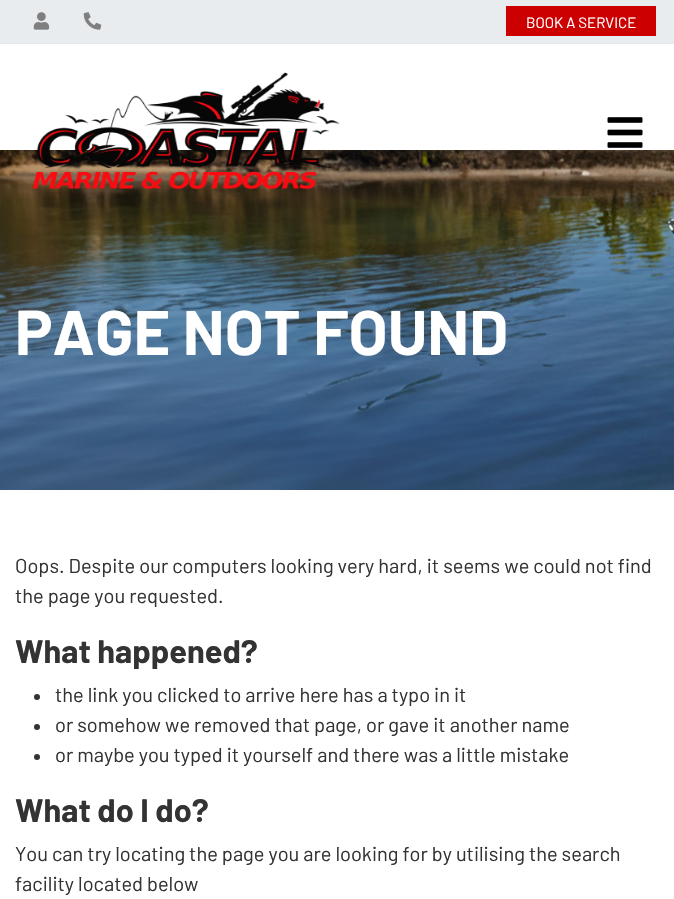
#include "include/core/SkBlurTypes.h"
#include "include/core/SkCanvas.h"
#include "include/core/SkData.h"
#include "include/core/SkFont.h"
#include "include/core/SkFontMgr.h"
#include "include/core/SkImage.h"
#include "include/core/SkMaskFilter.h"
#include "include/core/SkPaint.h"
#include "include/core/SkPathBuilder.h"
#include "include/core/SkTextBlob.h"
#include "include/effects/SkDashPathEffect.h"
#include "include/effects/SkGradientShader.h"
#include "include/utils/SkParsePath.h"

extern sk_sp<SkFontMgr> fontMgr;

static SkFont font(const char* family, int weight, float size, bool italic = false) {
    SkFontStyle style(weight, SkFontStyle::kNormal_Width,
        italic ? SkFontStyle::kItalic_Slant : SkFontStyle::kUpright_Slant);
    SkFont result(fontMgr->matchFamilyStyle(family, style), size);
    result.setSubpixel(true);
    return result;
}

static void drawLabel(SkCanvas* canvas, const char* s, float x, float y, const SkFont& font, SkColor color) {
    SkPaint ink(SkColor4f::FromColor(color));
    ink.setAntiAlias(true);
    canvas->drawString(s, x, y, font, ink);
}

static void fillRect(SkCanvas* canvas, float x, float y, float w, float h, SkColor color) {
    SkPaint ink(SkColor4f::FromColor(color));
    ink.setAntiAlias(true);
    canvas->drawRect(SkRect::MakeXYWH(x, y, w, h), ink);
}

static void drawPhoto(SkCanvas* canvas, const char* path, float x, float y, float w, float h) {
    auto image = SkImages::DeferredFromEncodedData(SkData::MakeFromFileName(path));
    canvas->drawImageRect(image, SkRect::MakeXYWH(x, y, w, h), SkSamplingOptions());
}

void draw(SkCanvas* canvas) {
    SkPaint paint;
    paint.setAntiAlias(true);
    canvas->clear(0xFFFFFFFF);
    fillRect(canvas, 0, 0, 674, 43, 0xFFE9ECEF);
    fillRect(canvas, 0, 43, 674, 1, 0xFFE8E8E8);
    drawPhoto(canvas, "assets/img1.png", 33, 12, 17, 18);
    drawPhoto(canvas, "assets/img2.png", 83, 12, 19, 18);
    fillRect(canvas, 506, 6, 150, 30, 0xFFCC0000);
    SkFont font1 = font("Barlow", 400, 15);
    drawLabel(canvas, "BOOK A SERVICE", 526, 28, font1, 0xFFFFFFFF);
    drawPhoto(canvas, "assets/img5.png", 0, 150, 674, 340);
    canvas->save();
    canvas->clipRect(SkRect::MakeXYWH(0, 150, 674, 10));
    paint.setColor(0x80141414);
    paint.setMaskFilter(SkMaskFilter::MakeBlur(kNormal_SkBlurStyle, 4));
    canvas->drawRect(SkRect::MakeXYWH(3, 51, 670, 102), paint);
    paint.setMaskFilter(nullptr);
    canvas->restore();
    drawPhoto(canvas, "assets/img3.png", 32, 72, 308, 118);
    drawPhoto(canvas, "assets/img4.png", 607, 117, 36, 31);
    SkFont font2 = font("Barlow", 700, 63);
    drawLabel(canvas, "PAGE NOT FOUND", 15, 355, font2, 0xFFFFFFFF);
    SkFont font3 = font("Barlow", 400, 20);
    drawLabel(canvas, "Oops. Despite our computers looking very hard, it seems we could not find", 15, 573, font3, 0xFF333333);
    drawLabel(canvas, "the page you requested.", 15, 603, font3, 0xFF333333);
    SkFont font4 = font("Barlow", 700, 32.5f);
    drawLabel(canvas, "What happened?", 15, 663, font4, 0xFF333333);
    paint.setColor(0xFF333333);
    canvas->drawCircle(37, 697, 3, paint);
    drawLabel(canvas, "the link you clicked to arrive here has a typo in it", 55, 702, font3, 0xFF333333);
    canvas->drawCircle(37, 727, 3, paint);
    drawLabel(canvas, "or somehow we removed that page, or gave it another name", 55, 732, font3, 0xFF333333);
    canvas->drawCircle(37, 757, 3, paint);
    drawLabel(canvas, "or maybe you typed it yourself and there was a little mistake", 55, 762, font3, 0xFF333333);
    drawLabel(canvas, "What do I do?", 15, 822, font4, 0xFF333333);
    drawLabel(canvas, "You can try locating the page you are looking for by utilising the search", 15, 861, font3, 0xFF333333);
    drawLabel(canvas, "facility located below", 15, 891, font3, 0xFF333333);
}
